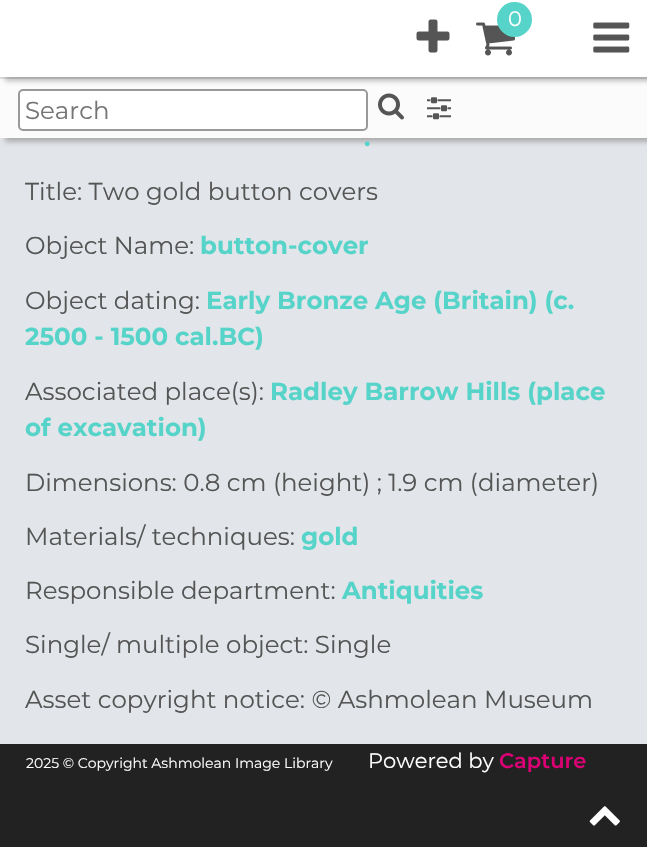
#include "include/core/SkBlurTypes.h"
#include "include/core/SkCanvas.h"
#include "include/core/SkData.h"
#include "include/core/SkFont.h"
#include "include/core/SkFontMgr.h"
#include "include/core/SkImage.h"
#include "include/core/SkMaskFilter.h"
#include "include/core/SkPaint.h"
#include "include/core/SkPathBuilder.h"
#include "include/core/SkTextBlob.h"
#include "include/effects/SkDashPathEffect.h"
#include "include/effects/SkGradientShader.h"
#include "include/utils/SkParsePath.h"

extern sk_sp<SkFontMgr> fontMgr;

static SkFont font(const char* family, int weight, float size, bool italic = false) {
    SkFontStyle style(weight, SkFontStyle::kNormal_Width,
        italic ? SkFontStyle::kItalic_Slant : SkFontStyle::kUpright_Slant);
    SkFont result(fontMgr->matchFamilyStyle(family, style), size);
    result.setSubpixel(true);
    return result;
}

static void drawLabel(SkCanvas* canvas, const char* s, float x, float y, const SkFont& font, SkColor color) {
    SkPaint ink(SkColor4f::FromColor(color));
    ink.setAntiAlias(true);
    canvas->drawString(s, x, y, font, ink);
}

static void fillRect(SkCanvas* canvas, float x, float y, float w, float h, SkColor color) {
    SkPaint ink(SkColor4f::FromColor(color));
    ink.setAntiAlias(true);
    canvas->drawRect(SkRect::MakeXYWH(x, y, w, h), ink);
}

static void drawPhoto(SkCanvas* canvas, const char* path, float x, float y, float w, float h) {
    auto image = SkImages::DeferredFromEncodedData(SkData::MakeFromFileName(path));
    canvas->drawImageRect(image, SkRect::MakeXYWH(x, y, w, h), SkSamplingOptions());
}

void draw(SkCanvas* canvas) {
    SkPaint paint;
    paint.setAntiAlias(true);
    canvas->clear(0xFFE2E5E9);
    paint.setColor(0x594A4545);
    paint.setMaskFilter(SkMaskFilter::MakeBlur(kNormal_SkBlurStyle, 2.5f));
    canvas->drawRect(SkRect::MakeXYWH(5, 79, 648, 63), paint);
    paint.setMaskFilter(nullptr);
    fillRect(canvas, 0, 79, 647, 59, 0xFFFBFBFB);
    fillRect(canvas, 0, 77, 647, 2, 0xFFDDDDDD);
    paint.setColor(0xFFFFFFFF);
    canvas->drawRoundRect(SkRect::MakeXYWH(19, 90, 348, 40), 4, 4, paint);
    paint.setStroke(true);
    paint.setStrokeWidth(2);
    paint.setColor(0xFF999999);
    canvas->drawRoundRect(SkRect::MakeXYWH(19, 90, 348, 40), 4, 4, paint);
    paint.setStroke(false);
    paint.setColor(0x594A4545);
    paint.setMaskFilter(SkMaskFilter::MakeBlur(kNormal_SkBlurStyle, 2.5f));
    canvas->drawRect(SkRect::MakeXYWH(5, 4, 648, 77), paint);
    paint.setMaskFilter(nullptr);
    fillRect(canvas, 0, 0, 647, 77, 0xFFFFFFFF);
    drawPhoto(canvas, "assets/img1.png", 416, 19, 34, 34);
    drawPhoto(canvas, "assets/img2.png", 476, 22, 39, 34);
    paint.setColor(0xFF57D4C9);
    canvas->drawCircle(514.5f, 19.5f, 17.5f, paint);
    SkFont font1 = font("Montserrat", 400, 21);
    drawLabel(canvas, "0", 508, 26, font1, 0xFFFFFFFF);
    drawPhoto(canvas, "assets/img3.png", 593, 22, 37, 31);
    SkFont font2 = font("Montserrat", 400, 24.5f);
    drawLabel(canvas, "Search", 25, 119, font2, 0xFF757575);
    drawPhoto(canvas, "assets/img4.png", 378, 93, 26, 27);
    drawPhoto(canvas, "assets/img5.png", 427, 97, 24, 23);
    SkFont font3 = font("Montserrat", 700, 24.5f);
    drawLabel(canvas, ".", 364, 146, font3, 0xFF57D4C9);
    drawLabel(canvas, "Title: Two gold button covers", 25, 200, font2, 0xFF555555);
    drawLabel(canvas, "Object Name:", 25, 254, font2, 0xFF555555);
    drawLabel(canvas, "button-cover", 200, 254, font3, 0xFF57D4C9);
    drawLabel(canvas, "Object dating:", 25, 309, font2, 0xFF555555);
    drawLabel(canvas, "Early Bronze Age (Britain) (c.", 206, 309, font3, 0xFF57D4C9);
    drawLabel(canvas, "2500 - 1500 cal.BC)", 25, 345, font3, 0xFF57D4C9);
    drawLabel(canvas, "Associated place(s):", 25, 400, font2, 0xFF555555);
    drawLabel(canvas, "Radley Barrow Hills (place", 270, 400, font3, 0xFF57D4C9);
    drawLabel(canvas, "of excavation)", 25, 436, font3, 0xFF57D4C9);
    drawLabel(canvas, "Dimensions: 0.8 cm (height) ; 1.9 cm (diameter)", 25, 491, font2, 0xFF555555);
    drawLabel(canvas, "Materials/ techniques:", 25, 545, font2, 0xFF555555);
    drawLabel(canvas, "gold", 301, 545, font3, 0xFF57D4C9);
    drawLabel(canvas, "Responsible department:", 25, 599, font2, 0xFF555555);
    drawLabel(canvas, "Antiquities", 342, 599, font3, 0xFF57D4C9);
    drawLabel(canvas, "Single/ multiple object: Single", 25, 653, font2, 0xFF555555);
    drawLabel(canvas, "Asset copyright notice: © Ashmolean Museum", 25, 708, font2, 0xFF555555);
    fillRect(canvas, 0, 744, 647, 103, 0xFF222222);
    SkFont font4 = font("Montserrat", 400, 14);
    drawLabel(canvas, "2025 © Copyright Ashmolean Image Library", 26, 768, font4, 0xFFFFFFFF);
    drawLabel(canvas, "Powered by", 368, 768, font1, 0xFFFFFFFF);
    SkFont font5 = font("Montserrat", 600, 21);
    drawLabel(canvas, "Capture", 499, 768, font5, 0xFFDB0074);
    drawPhoto(canvas, "assets/img6.png", 589, 806, 31, 20);
}
